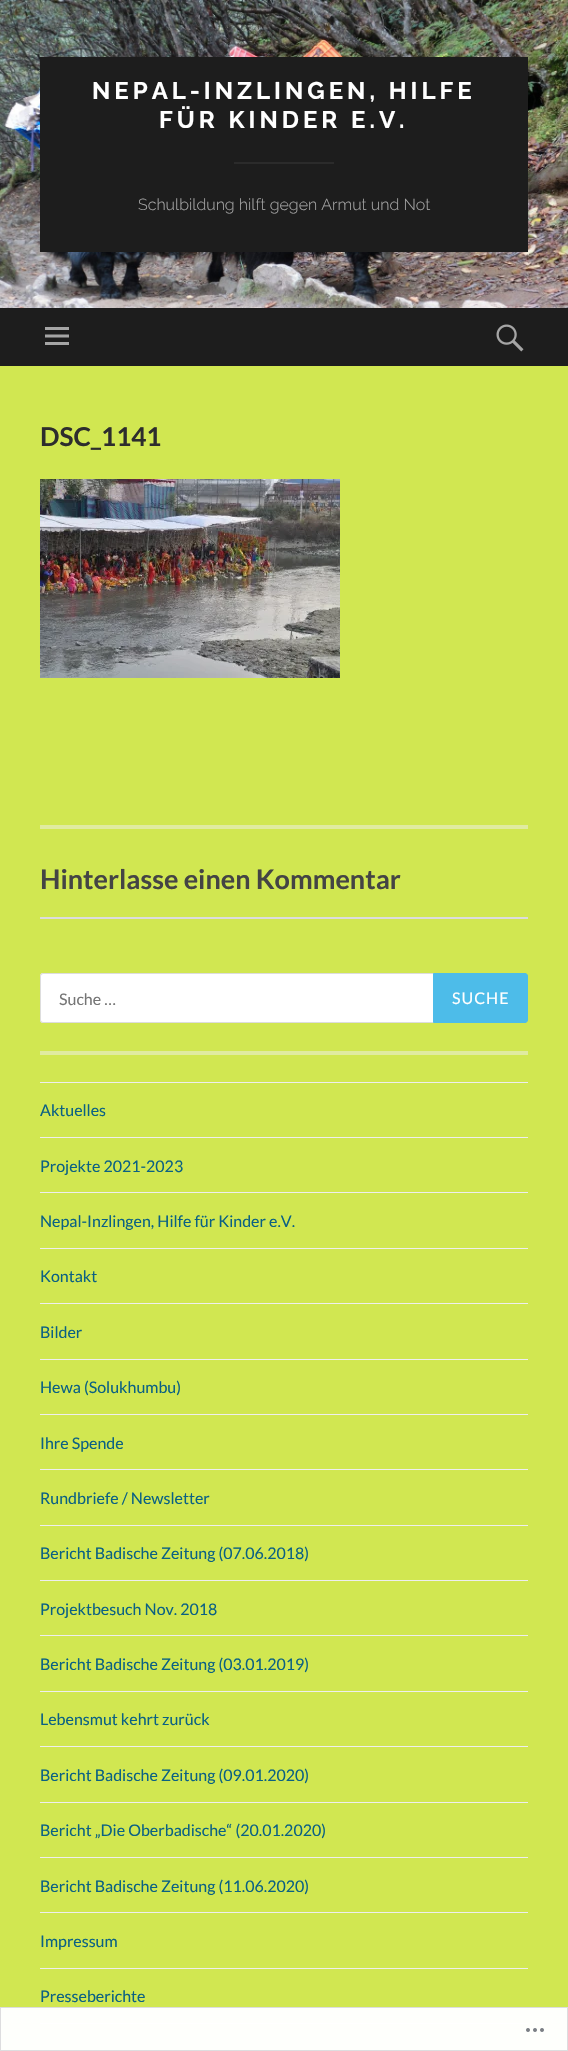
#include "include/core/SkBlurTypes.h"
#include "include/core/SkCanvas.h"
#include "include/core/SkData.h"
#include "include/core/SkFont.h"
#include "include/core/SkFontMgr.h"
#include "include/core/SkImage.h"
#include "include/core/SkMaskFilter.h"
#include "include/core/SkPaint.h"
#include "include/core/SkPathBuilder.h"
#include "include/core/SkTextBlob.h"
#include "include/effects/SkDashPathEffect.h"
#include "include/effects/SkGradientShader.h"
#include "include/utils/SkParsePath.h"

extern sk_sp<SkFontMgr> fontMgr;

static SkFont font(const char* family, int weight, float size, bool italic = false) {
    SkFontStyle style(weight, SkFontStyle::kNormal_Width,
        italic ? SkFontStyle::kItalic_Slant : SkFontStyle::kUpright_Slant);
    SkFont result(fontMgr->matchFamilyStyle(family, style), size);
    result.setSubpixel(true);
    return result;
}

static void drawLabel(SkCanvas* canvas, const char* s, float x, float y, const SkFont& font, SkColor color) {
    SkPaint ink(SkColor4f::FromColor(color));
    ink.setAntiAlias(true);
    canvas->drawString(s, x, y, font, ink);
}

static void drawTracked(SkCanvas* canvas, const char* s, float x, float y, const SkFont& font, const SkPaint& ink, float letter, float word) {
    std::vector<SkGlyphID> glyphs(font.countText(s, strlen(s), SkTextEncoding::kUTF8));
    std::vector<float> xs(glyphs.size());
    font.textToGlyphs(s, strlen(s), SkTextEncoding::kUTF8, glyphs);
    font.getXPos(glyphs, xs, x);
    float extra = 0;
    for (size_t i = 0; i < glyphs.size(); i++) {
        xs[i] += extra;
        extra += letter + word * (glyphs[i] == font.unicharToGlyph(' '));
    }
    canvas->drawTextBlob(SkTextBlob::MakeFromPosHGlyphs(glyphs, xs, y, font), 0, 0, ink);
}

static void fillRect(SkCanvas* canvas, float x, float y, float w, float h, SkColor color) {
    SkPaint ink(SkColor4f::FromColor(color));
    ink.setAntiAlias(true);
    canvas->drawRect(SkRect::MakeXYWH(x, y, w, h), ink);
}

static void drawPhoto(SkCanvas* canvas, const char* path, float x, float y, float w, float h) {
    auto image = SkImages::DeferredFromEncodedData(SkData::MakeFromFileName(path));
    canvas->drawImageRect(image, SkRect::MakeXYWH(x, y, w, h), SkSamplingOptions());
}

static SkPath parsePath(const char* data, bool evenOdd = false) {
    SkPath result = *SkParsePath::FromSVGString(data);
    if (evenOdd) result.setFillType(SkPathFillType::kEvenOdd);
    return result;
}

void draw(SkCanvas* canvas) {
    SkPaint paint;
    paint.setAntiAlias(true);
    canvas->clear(0xFFD1E751);
    fillRect(canvas, 0, 2007, 568, 44, 0xFFFEFFFC);
    drawPhoto(canvas, "assets/img1.png", 0, 0, 568, 308);
    fillRect(canvas, 40, 57, 488, 195, 0xFF1D1D1D);
    SkFont font1 = font("Raleway", 700, 24);
    paint.setColor(0xFFFFFFFF);
    drawTracked(canvas, "NEPAL-INZLINGEN, HILFE", 92, 99, font1, paint, 4, 0);
    drawTracked(canvas, "FÜR KINDER E.V.", 159, 128, font1, paint, 4, 0);
    fillRect(canvas, 234, 162, 100, 2, 0xFF2B2B2B);
    SkFont font2 = font("Raleway", 300, 16);
    drawLabel(canvas, "Schulbildung hilft gegen Armut und Not", 138, 210, font2, 0xFFA5A5A5);
    fillRect(canvas, 0, 308, 568, 58, 0xFF1D1D1D);
    drawPhoto(canvas, "assets/img2.png", 45, 327, 24, 18);
    drawPhoto(canvas, "assets/img3.png", 496, 324, 28, 28);
    fillRect(canvas, 40, 825, 488, 4, 0xFFE0EBA0);
    SkFont font3 = font("Lato", 700, 26);
    drawLabel(canvas, "DSC_1141", 40, 446, font3, 0xFF2D2D2D);
    drawPhoto(canvas, "assets/img4.png", 40, 479, 300, 199);
    SkFont font4 = font("Lato", 700, 27);
    drawLabel(canvas, "Hinterlasse einen Kommentar", 40, 889, font4, 0xFF444444);
    fillRect(canvas, 40, 917, 488, 2, 0xFFDCDCDE);
    fillRect(canvas, 40, 1051, 488, 4, 0xFFE0EBA0);
    canvas->drawPath(parsePath("M43 973H523V1023H43C41.5 1023 40 1021.5 40 1020V976C40 974.5 41.5 973 43 973Z"), paint);
    paint.setColor(0xFFDDDDDD);
    canvas->drawPath(parsePath("M43 973H523V1023H43C41 1023 40 1022 40 1020V976C40 974 41 973 43 973ZM43 974H523V1022H43C42 1022 41 1021 41 1020V976C41 975 42 974 43 974Z", true), paint);
    SkFont font5 = font("Lato", 400, 16);
    drawLabel(canvas, "Suche …", 59, 1005, font5, 0xFF757575);
    paint.setColor(0xFF4DBCE9);
    canvas->drawPath(parsePath("M433.5 973.5H525C526.5 973.5 527.5 974.5 527.5 976V1020C527.5 1021.5 526.5 1022.5 525 1022.5H433.5Z"), paint);
    paint.setStroke(true);
    paint.setStrokeWidth(1);
    canvas->drawPath(parsePath("M433.5 973.5H525C526.5 973.5 527.5 974.5 527.5 976V1020C527.5 1021.5 526.5 1022.5 525 1022.5H433.5Z"), paint);
    paint.setStroke(false);
    paint.setColor(0xFFFFFFFF);
    drawTracked(canvas, "SUCHE", 452, 1004, font5, paint, 1, 0);
    fillRect(canvas, 40, 1082, 488, 1, 0xFFEEEEEE);
    drawLabel(canvas, "Aktuelles", 40, 1116, font5, 0xFF0B6183);
    fillRect(canvas, 40, 1137, 488, 1, 0xFFEEEEEE);
    drawLabel(canvas, "Projekte 2021-2023", 40, 1172, font5, 0xFF0B6183);
    fillRect(canvas, 40, 1192, 488, 1, 0xFFEEEEEE);
    drawLabel(canvas, "Nepal-Inzlingen, Hilfe für Kinder e.V.", 40, 1227, font5, 0xFF0B6183);
    fillRect(canvas, 40, 1248, 488, 1, 0xFFEEEEEE);
    drawLabel(canvas, "Kontakt", 40, 1282, font5, 0xFF0B6183);
    fillRect(canvas, 40, 1303, 488, 1, 0xFFEEEEEE);
    drawLabel(canvas, "Bilder", 40, 1338, font5, 0xFF0B6183);
    fillRect(canvas, 40, 1359, 488, 1, 0xFFEEEEEE);
    drawLabel(canvas, "Hewa (Solukhumbu)", 40, 1393, font5, 0xFF0B6183);
    fillRect(canvas, 40, 1414, 488, 1, 0xFFEEEEEE);
    drawLabel(canvas, "Ihre Spende", 40, 1449, font5, 0xFF0B6183);
    fillRect(canvas, 40, 1469, 488, 1, 0xFFEEEEEE);
    drawLabel(canvas, "Rundbriefe / Newsletter", 40, 1504, font5, 0xFF0B6183);
    fillRect(canvas, 40, 1525, 488, 1, 0xFFEEEEEE);
    drawLabel(canvas, "Bericht Badische Zeitung (07.06.2018)", 40, 1559, font5, 0xFF0B6183);
    fillRect(canvas, 40, 1580, 488, 1, 0xFFEEEEEE);
    drawLabel(canvas, "Projektbesuch Nov. 2018", 40, 1615, font5, 0xFF0B6183);
    fillRect(canvas, 40, 1635, 488, 1, 0xFFEEEEEE);
    drawLabel(canvas, "Bericht Badische Zeitung (03.01.2019)", 40, 1670, font5, 0xFF0B6183);
    fillRect(canvas, 40, 1691, 488, 1, 0xFFEEEEEE);
    drawLabel(canvas, "Lebensmut kehrt zurück", 40, 1725, font5, 0xFF0B6183);
    fillRect(canvas, 40, 1746, 488, 1, 0xFFEEEEEE);
    drawLabel(canvas, "Bericht Badische Zeitung (09.01.2020)", 40, 1781, font5, 0xFF0B6183);
    fillRect(canvas, 40, 1802, 488, 1, 0xFFEEEEEE);
    drawLabel(canvas, "Bericht „Die Oberbadische“ (20.01.2020)", 40, 1836, font5, 0xFF0B6183);
    fillRect(canvas, 40, 1857, 488, 1, 0xFFEEEEEE);
    drawLabel(canvas, "Bericht Badische Zeitung (11.06.2020)", 40, 1892, font5, 0xFF0B6183);
    fillRect(canvas, 40, 1912, 488, 1, 0xFFEEEEEE);
    drawLabel(canvas, "Impressum", 40, 1947, font5, 0xFF0B6183);
    fillRect(canvas, 40, 1968, 488, 1, 0xFFEEEEEE);
    drawLabel(canvas, "Presseberichte", 40, 2002, font5, 0xFF0B6183);
    fillRect(canvas, 40, 2023, 488, 1, 0xFFFFFFFF);
    paint.setStroke(true);
    paint.setColor(0xFADCDCDE);
    canvas->drawRect(SkRect::MakeXYWH(0.5f, 2007.5f, 567, 43), paint);
    drawPhoto(canvas, "assets/img5.png", 526, 2028, 18, 4);
}
